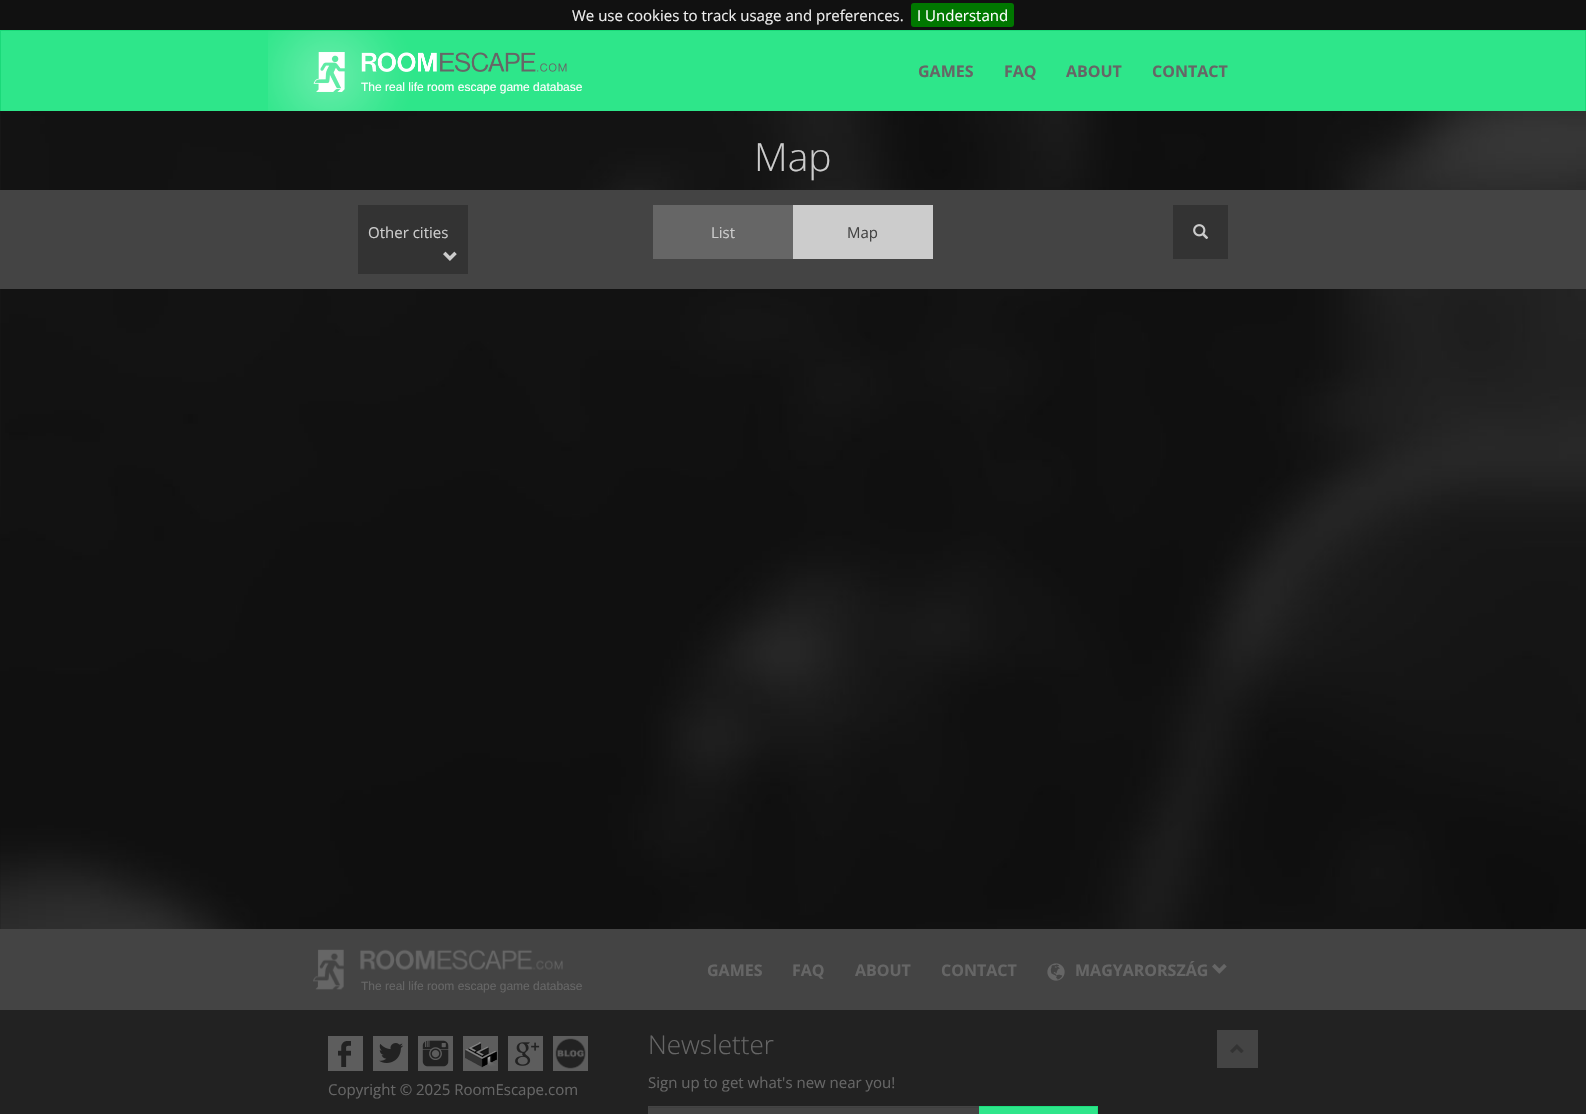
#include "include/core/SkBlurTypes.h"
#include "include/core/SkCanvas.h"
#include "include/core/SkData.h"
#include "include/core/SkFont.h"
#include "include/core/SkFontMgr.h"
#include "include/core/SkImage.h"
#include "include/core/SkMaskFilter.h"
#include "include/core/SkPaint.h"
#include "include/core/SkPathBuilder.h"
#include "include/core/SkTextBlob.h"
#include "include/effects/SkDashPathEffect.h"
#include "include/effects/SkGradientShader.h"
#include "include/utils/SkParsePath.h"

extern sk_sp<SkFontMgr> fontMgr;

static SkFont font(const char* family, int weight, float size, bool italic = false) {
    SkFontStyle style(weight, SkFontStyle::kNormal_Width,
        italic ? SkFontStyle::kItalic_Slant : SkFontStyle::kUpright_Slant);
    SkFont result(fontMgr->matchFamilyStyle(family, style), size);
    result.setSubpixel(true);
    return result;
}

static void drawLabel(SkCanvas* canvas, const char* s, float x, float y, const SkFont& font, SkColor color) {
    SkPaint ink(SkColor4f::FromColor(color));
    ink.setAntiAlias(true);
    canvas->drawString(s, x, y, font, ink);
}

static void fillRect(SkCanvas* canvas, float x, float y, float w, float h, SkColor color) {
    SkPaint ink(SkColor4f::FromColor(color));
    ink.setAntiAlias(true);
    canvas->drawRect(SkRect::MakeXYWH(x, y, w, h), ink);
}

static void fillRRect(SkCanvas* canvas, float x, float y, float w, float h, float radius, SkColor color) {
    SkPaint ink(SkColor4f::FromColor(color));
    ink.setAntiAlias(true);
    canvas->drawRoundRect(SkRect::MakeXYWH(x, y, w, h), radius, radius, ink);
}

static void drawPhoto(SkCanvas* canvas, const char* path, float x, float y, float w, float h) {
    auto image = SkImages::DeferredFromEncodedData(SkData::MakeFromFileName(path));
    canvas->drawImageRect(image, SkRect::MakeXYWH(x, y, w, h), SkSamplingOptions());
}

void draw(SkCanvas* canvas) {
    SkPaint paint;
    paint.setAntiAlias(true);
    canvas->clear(0xFFFFFFFF);
    drawPhoto(canvas, "assets/img1.png", 0, 111, 1586, 818);
    fillRect(canvas, 0, 0, 1586, 30, 0xFF111111);
    SkFont font1 = font("Open Sans", 400, 15);
    drawLabel(canvas, "We use cookies to track usage and preferences.", 572, 21, font1, 0xFFEEEEEE);
    fillRRect(canvas, 911, 3, 103, 24, 3, 0xFF007700);
    drawLabel(canvas, "I Understand", 917, 21, font1, 0xFFFFFFFF);
    fillRect(canvas, 1, 31, 1584, 80, 0xFF2EE68A);
    fillRect(canvas, 0, 30, 1586, 1, 0xFF1AD979);
    fillRect(canvas, 1585, 30, 1, 81, 0xFF1AD979);
    fillRect(canvas, 0, 30, 1, 81, 0xFF1AD979);
    SkFont font2 = font("Open Sans", 700, 16);
    drawLabel(canvas, "GAMES", 918, 77, font2, 0xFF666666);
    drawLabel(canvas, "FAQ", 1004, 77, font2, 0xFF666666);
    drawLabel(canvas, "ABOUT", 1066, 77, font2, 0xFF666666);
    drawLabel(canvas, "CONTACT", 1152, 77, font2, 0xFF666666);
    drawPhoto(canvas, "assets/img2.png", 268, 31, 299, 80);
    SkFont font3 = font("Liberation Sans", 400, 12);
    drawLabel(canvas, "The real life room escape game database", 361, 91, font3, 0xFFFFFFFF);
    SkFont font4 = font("Open Sans", 300, 39);
    drawLabel(canvas, "Map", 754, 171, font4, 0xFFCCCCCC);
    fillRect(canvas, 0, 190, 1586, 99, 0xFF444444);
    fillRect(canvas, 358, 205, 110, 69, 0xFF333333);
    drawLabel(canvas, "Other cities", 368, 238, font1, 0xFFCCCCCC);
    drawPhoto(canvas, "assets/img3.png", 443, 251, 14, 10);
    fillRect(canvas, 653, 205, 140, 54, 0xFF666666);
    drawLabel(canvas, "List", 711, 238, font1, 0xFFCCCCCC);
    fillRect(canvas, 793, 205, 140, 54, 0xFFCCCCCC);
    drawLabel(canvas, "Map", 847, 238, font1, 0xFF444444);
    fillRect(canvas, 1173, 205, 55, 54, 0xFF333333);
    drawPhoto(canvas, "assets/img4.png", 1193, 224, 16, 15);
    fillRect(canvas, 0, 929, 1586, 81, 0xFF444444);
    drawLabel(canvas, "GAMES", 707, 976, font2, 0xFF666666);
    drawLabel(canvas, "FAQ", 792, 976, font2, 0xFF666666);
    drawLabel(canvas, "ABOUT", 855, 976, font2, 0xFF666666);
    drawLabel(canvas, "CONTACT", 941, 976, font2, 0xFF666666);
    drawPhoto(canvas, "assets/img5.png", 1047, 963, 18, 18);
    drawLabel(canvas, "MAGYARORSZÁG", 1075, 976, font2, 0xFF666666);
    drawPhoto(canvas, "assets/img6.png", 1212, 964, 15, 10);
    drawPhoto(canvas, "assets/img7.png", 313, 949, 250, 41);
    drawLabel(canvas, "The real life room escape game database", 361, 990, font3, 0xFF666666);
    fillRect(canvas, 0, 1010, 1586, 104, 0xFF222222);
    drawPhoto(canvas, "assets/img8.png", 328, 1036, 35, 35);
    drawPhoto(canvas, "assets/img9.png", 373, 1036, 35, 35);
    drawPhoto(canvas, "assets/img10.png", 418, 1036, 35, 35);
    drawPhoto(canvas, "assets/img11.png", 463, 1036, 35, 35);
    drawPhoto(canvas, "assets/img12.png", 508, 1036, 35, 35);
    drawPhoto(canvas, "assets/img13.png", 553, 1036, 35, 35);
    drawLabel(canvas, "Copyright © 2025 RoomEscape.com", 328, 1095, font1, 0xFF666666);
    SkFont font5 = font("Open Sans", 300, 26);
    drawLabel(canvas, "Newsletter", 648, 1054, font5, 0xFF666666);
    drawLabel(canvas, "Sign up to get what's new near you!", 648, 1088, font1, 0xFF666666);
    paint.setColor(0xFF2EE68A);
    canvas->drawRect(SkRect::MakeXYWH(978.5f, 1106.5f, 119, 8), paint);
    paint.setStroke(true);
    paint.setStrokeWidth(1);
    paint.setColor(0xFF1BE07D);
    canvas->drawRect(SkRect::MakeXYWH(978.5f, 1106.5f, 119, 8), paint);
    fillRect(canvas, 648, 1106, 331, 8, 0xFF444444);
    fillRect(canvas, 649, 1107, 329, 1, 0xFF3F3F3F);
    fillRect(canvas, 1217, 1030, 41, 38, 0xFF444444);
    drawPhoto(canvas, "assets/img14.png", 1230, 1044, 14, 9);
}
